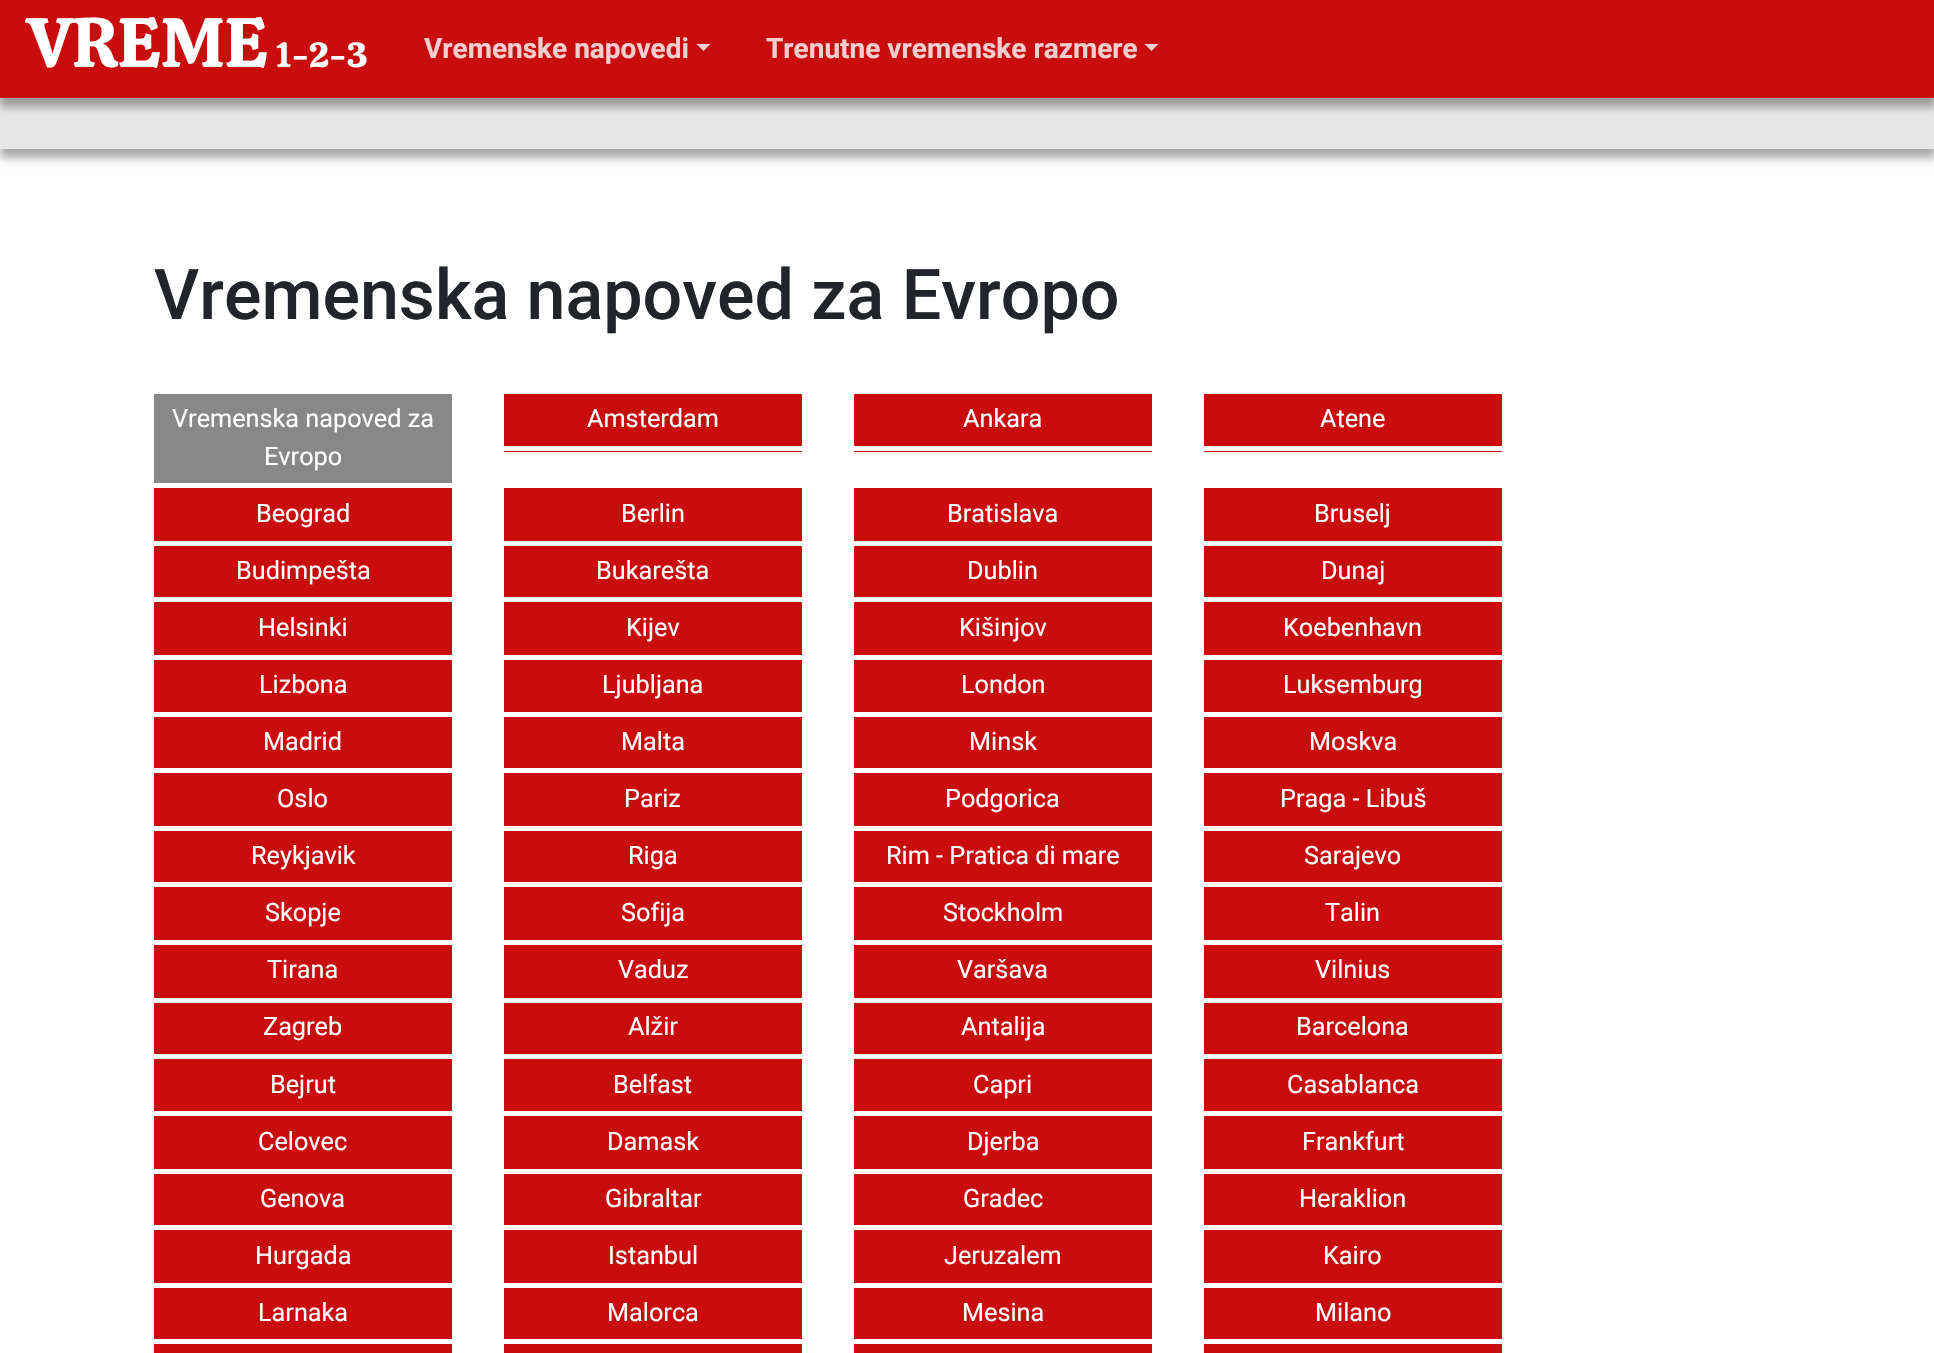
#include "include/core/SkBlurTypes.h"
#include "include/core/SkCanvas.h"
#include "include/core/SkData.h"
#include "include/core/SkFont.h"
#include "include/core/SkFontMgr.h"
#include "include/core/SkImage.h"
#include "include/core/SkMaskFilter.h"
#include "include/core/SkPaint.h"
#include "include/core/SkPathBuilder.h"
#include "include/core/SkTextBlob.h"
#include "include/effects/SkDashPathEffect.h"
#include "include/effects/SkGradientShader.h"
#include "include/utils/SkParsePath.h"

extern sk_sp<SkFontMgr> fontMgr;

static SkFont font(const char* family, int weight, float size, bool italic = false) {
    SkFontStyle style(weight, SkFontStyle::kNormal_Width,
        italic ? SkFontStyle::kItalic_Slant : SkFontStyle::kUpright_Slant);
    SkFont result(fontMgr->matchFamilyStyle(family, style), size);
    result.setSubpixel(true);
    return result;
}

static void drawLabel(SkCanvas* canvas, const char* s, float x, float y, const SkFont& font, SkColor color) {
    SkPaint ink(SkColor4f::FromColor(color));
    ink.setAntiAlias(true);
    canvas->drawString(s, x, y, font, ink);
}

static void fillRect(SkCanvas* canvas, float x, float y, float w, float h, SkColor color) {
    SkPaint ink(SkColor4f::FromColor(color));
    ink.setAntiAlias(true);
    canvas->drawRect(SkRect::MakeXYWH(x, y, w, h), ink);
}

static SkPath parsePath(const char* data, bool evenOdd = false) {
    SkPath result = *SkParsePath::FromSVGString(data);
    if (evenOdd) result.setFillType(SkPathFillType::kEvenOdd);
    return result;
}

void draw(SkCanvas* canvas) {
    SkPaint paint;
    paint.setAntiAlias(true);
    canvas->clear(0xFFFFFFFF);
    paint.setColor(0x57000000);
    paint.setMaskFilter(SkMaskFilter::MakeBlur(kNormal_SkBlurStyle, 4.5f));
    canvas->drawRect(SkRect::MakeXYWH(0, 105, 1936, 53), paint);
    paint.setMaskFilter(nullptr);
    fillRect(canvas, 0, 98, 1934, 51, 0xFFE7E7E7);
    paint.setMaskFilter(SkMaskFilter::MakeBlur(kNormal_SkBlurStyle, 4.5f));
    canvas->drawRect(SkRect::MakeXYWH(0, 9, 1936, 98), paint);
    paint.setMaskFilter(nullptr);
    fillRect(canvas, 0, 0, 1934, 98, 0xFFC90C0C);
    SkFont font1 = font("Calistoga", 400, 70);
    drawLabel(canvas, "VREME", 28, 67, font1, 0xFFFFFFFF);
    SkFont font2 = font("Calistoga", 400, 35);
    drawLabel(canvas, "1-2-3", 275, 67, font2, 0xFFFFFFFF);
    SkFont font3 = font("Roboto", 700, 28);
    drawLabel(canvas, "Vremenske napovedi", 424, 58, font3, 0xFFF4CECE);
    paint.setColor(0xFFF4CECE);
    canvas->drawPath(parsePath("M696.5 44H710.5L703.5 51Z"), paint);
    drawLabel(canvas, "Trenutne vremenske razmere", 766, 58, font3, 0xFFF4CECE);
    canvas->drawPath(parsePath("M1144.5 44H1158.5L1151.5 51Z"), paint);
    SkFont font4 = font("Roboto", 500, 70);
    drawLabel(canvas, "Vremenska napoved za Evropo", 154, 319, font4, 0xFF212529);
    fillRect(canvas, 154, 394, 298, 89, 0xFF888888);
    SkFont font5 = font("Roboto", 400, 25.25f);
    drawLabel(canvas, "Vremenska napoved za", 172, 427, font5, 0xFFFFFFFF);
    drawLabel(canvas, "Evropo", 264, 465, font5, 0xFFFFFFFF);
    fillRect(canvas, 504, 394, 298, 58, 0xFFC90C0C);
    fillRect(canvas, 504, 446, 298, 5, 0xFFFFFFFF);
    drawLabel(canvas, "Amsterdam", 587, 427, font5, 0xFFFFFFFF);
    fillRect(canvas, 854, 394, 298, 58, 0xFFC90C0C);
    fillRect(canvas, 854, 446, 298, 5, 0xFFFFFFFF);
    drawLabel(canvas, "Ankara", 963, 427, font5, 0xFFFFFFFF);
    fillRect(canvas, 1204, 394, 298, 58, 0xFFC90C0C);
    fillRect(canvas, 1204, 446, 298, 5, 0xFFFFFFFF);
    drawLabel(canvas, "Atene", 1320, 427, font5, 0xFFFFFFFF);
    fillRect(canvas, 154, 488, 298, 53, 0xFFC90C0C);
    drawLabel(canvas, "Beograd", 256, 522, font5, 0xFFFFFFFF);
    fillRect(canvas, 504, 488, 298, 53, 0xFFC90C0C);
    drawLabel(canvas, "Berlin", 621, 522, font5, 0xFFFFFFFF);
    fillRect(canvas, 854, 488, 298, 53, 0xFFC90C0C);
    drawLabel(canvas, "Bratislava", 947, 522, font5, 0xFFFFFFFF);
    fillRect(canvas, 1204, 488, 298, 53, 0xFFC90C0C);
    drawLabel(canvas, "Bruselj", 1314, 522, font5, 0xFFFFFFFF);
    fillRect(canvas, 154, 546, 298, 51, 0xFFC90C0C);
    drawLabel(canvas, "Budimpešta", 236, 579, font5, 0xFFFFFFFF);
    fillRect(canvas, 504, 546, 298, 51, 0xFFC90C0C);
    drawLabel(canvas, "Bukarešta", 596, 579, font5, 0xFFFFFFFF);
    fillRect(canvas, 854, 546, 298, 51, 0xFFC90C0C);
    drawLabel(canvas, "Dublin", 967, 579, font5, 0xFFFFFFFF);
    fillRect(canvas, 1204, 546, 298, 51, 0xFFC90C0C);
    drawLabel(canvas, "Dunaj", 1321, 579, font5, 0xFFFFFFFF);
    fillRect(canvas, 154, 602, 298, 53, 0xFFC90C0C);
    drawLabel(canvas, "Helsinki", 258, 636, font5, 0xFFFFFFFF);
    fillRect(canvas, 504, 602, 298, 53, 0xFFC90C0C);
    drawLabel(canvas, "Kijev", 626, 636, font5, 0xFFFFFFFF);
    fillRect(canvas, 854, 602, 298, 53, 0xFFC90C0C);
    drawLabel(canvas, "Kišinjov", 959, 636, font5, 0xFFFFFFFF);
    fillRect(canvas, 1204, 602, 298, 53, 0xFFC90C0C);
    drawLabel(canvas, "Koebenhavn", 1283, 636, font5, 0xFFFFFFFF);
    fillRect(canvas, 154, 660, 298, 166, 0xFFC90C0C);
    fillRect(canvas, 154, 712, 298, 5, 0xFFFFFFFF);
    drawLabel(canvas, "Lizbona", 259, 693, font5, 0xFFFFFFFF);
    fillRect(canvas, 504, 660, 298, 166, 0xFFC90C0C);
    fillRect(canvas, 504, 712, 298, 5, 0xFFFFFFFF);
    drawLabel(canvas, "Ljubljana", 602, 693, font5, 0xFFFFFFFF);
    fillRect(canvas, 854, 660, 298, 166, 0xFFC90C0C);
    fillRect(canvas, 854, 712, 298, 5, 0xFFFFFFFF);
    drawLabel(canvas, "London", 961, 693, font5, 0xFFFFFFFF);
    fillRect(canvas, 1204, 660, 298, 166, 0xFFC90C0C);
    fillRect(canvas, 1204, 712, 298, 5, 0xFFFFFFFF);
    drawLabel(canvas, "Luksemburg", 1283, 693, font5, 0xFFFFFFFF);
    fillRect(canvas, 154, 768, 298, 5, 0xFFFFFFFF);
    drawLabel(canvas, "Madrid", 263, 750, font5, 0xFFFFFFFF);
    fillRect(canvas, 504, 768, 298, 5, 0xFFFFFFFF);
    drawLabel(canvas, "Malta", 621, 750, font5, 0xFFFFFFFF);
    fillRect(canvas, 854, 768, 298, 5, 0xFFFFFFFF);
    drawLabel(canvas, "Minsk", 969, 750, font5, 0xFFFFFFFF);
    fillRect(canvas, 1204, 768, 298, 5, 0xFFFFFFFF);
    drawLabel(canvas, "Moskva", 1309, 750, font5, 0xFFFFFFFF);
    drawLabel(canvas, "Oslo", 277, 807, font5, 0xFFFFFFFF);
    drawLabel(canvas, "Pariz", 624, 807, font5, 0xFFFFFFFF);
    drawLabel(canvas, "Podgorica", 945, 807, font5, 0xFFFFFFFF);
    drawLabel(canvas, "Praga - Libuš", 1280, 807, font5, 0xFFFFFFFF);
    fillRect(canvas, 154, 831, 298, 51, 0xFFC90C0C);
    drawLabel(canvas, "Reykjavik", 251, 864, font5, 0xFFFFFFFF);
    fillRect(canvas, 504, 831, 298, 51, 0xFFC90C0C);
    drawLabel(canvas, "Riga", 628, 864, font5, 0xFFFFFFFF);
    fillRect(canvas, 854, 831, 298, 51, 0xFFC90C0C);
    drawLabel(canvas, "Rim - Pratica di mare", 886, 864, font5, 0xFFFFFFFF);
    fillRect(canvas, 1204, 831, 298, 51, 0xFFC90C0C);
    drawLabel(canvas, "Sarajevo", 1304, 864, font5, 0xFFFFFFFF);
    fillRect(canvas, 154, 887, 298, 53, 0xFFC90C0C);
    drawLabel(canvas, "Skopje", 265, 921, font5, 0xFFFFFFFF);
    fillRect(canvas, 504, 887, 298, 53, 0xFFC90C0C);
    drawLabel(canvas, "Sofija", 621, 921, font5, 0xFFFFFFFF);
    fillRect(canvas, 854, 887, 298, 53, 0xFFC90C0C);
    drawLabel(canvas, "Stockholm", 943, 921, font5, 0xFFFFFFFF);
    fillRect(canvas, 1204, 887, 298, 53, 0xFFC90C0C);
    drawLabel(canvas, "Talin", 1325, 921, font5, 0xFFFFFFFF);
    fillRect(canvas, 154, 945, 298, 53, 0xFFC90C0C);
    drawLabel(canvas, "Tirana", 267, 978, font5, 0xFFFFFFFF);
    fillRect(canvas, 504, 945, 298, 53, 0xFFC90C0C);
    drawLabel(canvas, "Vaduz", 618, 978, font5, 0xFFFFFFFF);
    fillRect(canvas, 854, 945, 298, 53, 0xFFC90C0C);
    drawLabel(canvas, "Varšava", 957, 978, font5, 0xFFFFFFFF);
    fillRect(canvas, 1204, 945, 298, 53, 0xFFC90C0C);
    drawLabel(canvas, "Vilnius", 1315, 978, font5, 0xFFFFFFFF);
    fillRect(canvas, 154, 1003, 298, 51, 0xFFC90C0C);
    drawLabel(canvas, "Zagreb", 263, 1035, font5, 0xFFFFFFFF);
    fillRect(canvas, 504, 1003, 298, 51, 0xFFC90C0C);
    drawLabel(canvas, "Alžir", 628, 1035, font5, 0xFFFFFFFF);
    fillRect(canvas, 854, 1003, 298, 51, 0xFFC90C0C);
    drawLabel(canvas, "Antalija", 961, 1035, font5, 0xFFFFFFFF);
    fillRect(canvas, 1204, 1003, 298, 51, 0xFFC90C0C);
    drawLabel(canvas, "Barcelona", 1296, 1035, font5, 0xFFFFFFFF);
    fillRect(canvas, 154, 1059, 298, 110, 0xFFC90C0C);
    fillRect(canvas, 154, 1111, 298, 5, 0xFFFFFFFF);
    drawLabel(canvas, "Bejrut", 270, 1093, font5, 0xFFFFFFFF);
    fillRect(canvas, 504, 1059, 298, 110, 0xFFC90C0C);
    fillRect(canvas, 504, 1111, 298, 5, 0xFFFFFFFF);
    drawLabel(canvas, "Belfast", 613, 1093, font5, 0xFFFFFFFF);
    fillRect(canvas, 854, 1059, 298, 110, 0xFFC90C0C);
    fillRect(canvas, 854, 1111, 298, 5, 0xFFFFFFFF);
    drawLabel(canvas, "Capri", 973, 1093, font5, 0xFFFFFFFF);
    fillRect(canvas, 1204, 1059, 298, 110, 0xFFC90C0C);
    fillRect(canvas, 1204, 1111, 298, 5, 0xFFFFFFFF);
    drawLabel(canvas, "Casablanca", 1287, 1093, font5, 0xFFFFFFFF);
    drawLabel(canvas, "Celovec", 258, 1150, font5, 0xFFFFFFFF);
    drawLabel(canvas, "Damask", 607, 1150, font5, 0xFFFFFFFF);
    drawLabel(canvas, "Djerba", 967, 1150, font5, 0xFFFFFFFF);
    drawLabel(canvas, "Frankfurt", 1302, 1150, font5, 0xFFFFFFFF);
    fillRect(canvas, 154, 1174, 298, 51, 0xFFC90C0C);
    drawLabel(canvas, "Genova", 260, 1207, font5, 0xFFFFFFFF);
    fillRect(canvas, 504, 1174, 298, 51, 0xFFC90C0C);
    drawLabel(canvas, "Gibraltar", 605, 1207, font5, 0xFFFFFFFF);
    fillRect(canvas, 854, 1174, 298, 51, 0xFFC90C0C);
    drawLabel(canvas, "Gradec", 963, 1207, font5, 0xFFFFFFFF);
    fillRect(canvas, 1204, 1174, 298, 51, 0xFFC90C0C);
    drawLabel(canvas, "Heraklion", 1299, 1207, font5, 0xFFFFFFFF);
    fillRect(canvas, 154, 1230, 298, 53, 0xFFC90C0C);
    drawLabel(canvas, "Hurgada", 255, 1264, font5, 0xFFFFFFFF);
    fillRect(canvas, 504, 1230, 298, 53, 0xFFC90C0C);
    drawLabel(canvas, "Istanbul", 608, 1264, font5, 0xFFFFFFFF);
    fillRect(canvas, 854, 1230, 298, 53, 0xFFC90C0C);
    drawLabel(canvas, "Jeruzalem", 944, 1264, font5, 0xFFFFFFFF);
    fillRect(canvas, 1204, 1230, 298, 53, 0xFFC90C0C);
    drawLabel(canvas, "Kairo", 1323, 1264, font5, 0xFFFFFFFF);
    fillRect(canvas, 154, 1288, 298, 51, 0xFFC90C0C);
    drawLabel(canvas, "Larnaka", 258, 1321, font5, 0xFFFFFFFF);
    fillRect(canvas, 504, 1288, 298, 51, 0xFFC90C0C);
    drawLabel(canvas, "Malorca", 607, 1321, font5, 0xFFFFFFFF);
    fillRect(canvas, 854, 1288, 298, 51, 0xFFC90C0C);
    drawLabel(canvas, "Mesina", 962, 1321, font5, 0xFFFFFFFF);
    fillRect(canvas, 1204, 1288, 298, 51, 0xFFC90C0C);
    drawLabel(canvas, "Milano", 1315, 1321, font5, 0xFFFFFFFF);
    fillRect(canvas, 154, 1344, 298, 9, 0xFFC90C0C);
    fillRect(canvas, 504, 1344, 298, 9, 0xFFC90C0C);
    fillRect(canvas, 854, 1344, 298, 9, 0xFFC90C0C);
    fillRect(canvas, 1204, 1344, 298, 9, 0xFFC90C0C);
}
